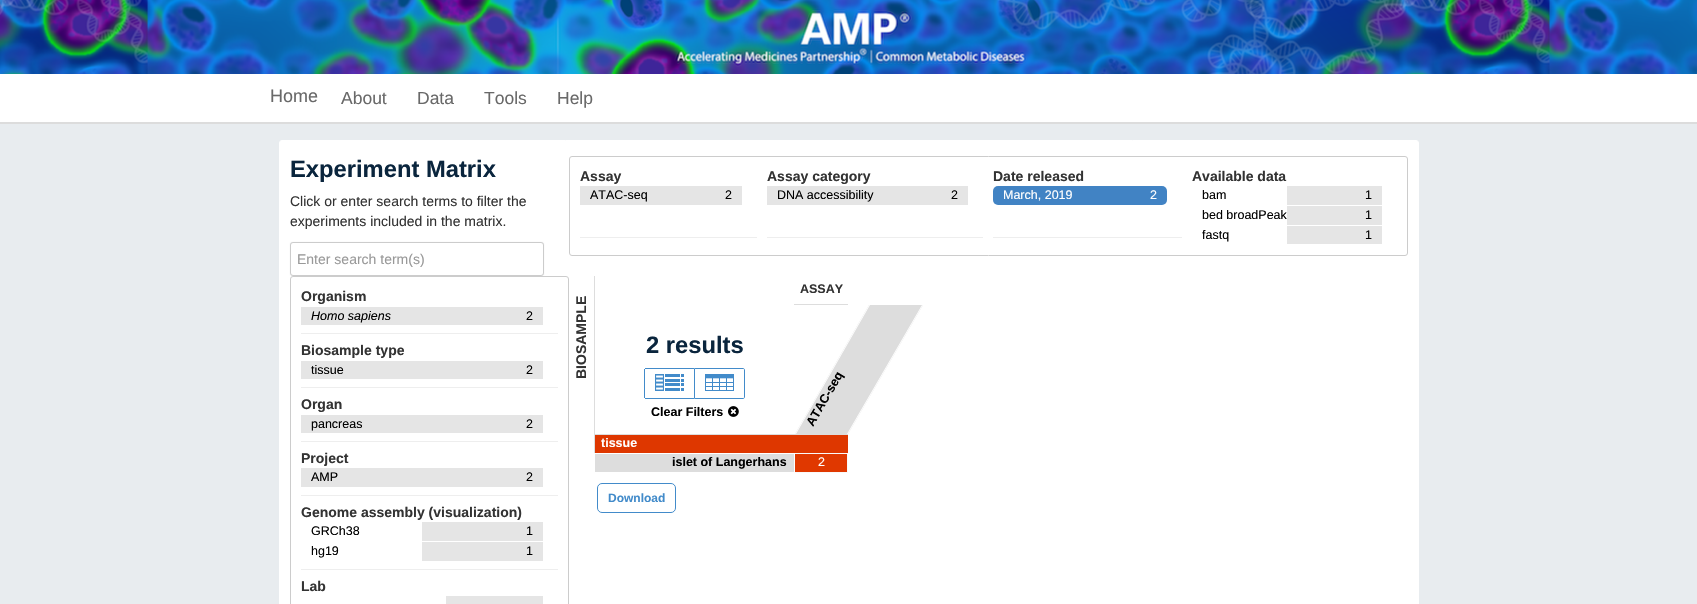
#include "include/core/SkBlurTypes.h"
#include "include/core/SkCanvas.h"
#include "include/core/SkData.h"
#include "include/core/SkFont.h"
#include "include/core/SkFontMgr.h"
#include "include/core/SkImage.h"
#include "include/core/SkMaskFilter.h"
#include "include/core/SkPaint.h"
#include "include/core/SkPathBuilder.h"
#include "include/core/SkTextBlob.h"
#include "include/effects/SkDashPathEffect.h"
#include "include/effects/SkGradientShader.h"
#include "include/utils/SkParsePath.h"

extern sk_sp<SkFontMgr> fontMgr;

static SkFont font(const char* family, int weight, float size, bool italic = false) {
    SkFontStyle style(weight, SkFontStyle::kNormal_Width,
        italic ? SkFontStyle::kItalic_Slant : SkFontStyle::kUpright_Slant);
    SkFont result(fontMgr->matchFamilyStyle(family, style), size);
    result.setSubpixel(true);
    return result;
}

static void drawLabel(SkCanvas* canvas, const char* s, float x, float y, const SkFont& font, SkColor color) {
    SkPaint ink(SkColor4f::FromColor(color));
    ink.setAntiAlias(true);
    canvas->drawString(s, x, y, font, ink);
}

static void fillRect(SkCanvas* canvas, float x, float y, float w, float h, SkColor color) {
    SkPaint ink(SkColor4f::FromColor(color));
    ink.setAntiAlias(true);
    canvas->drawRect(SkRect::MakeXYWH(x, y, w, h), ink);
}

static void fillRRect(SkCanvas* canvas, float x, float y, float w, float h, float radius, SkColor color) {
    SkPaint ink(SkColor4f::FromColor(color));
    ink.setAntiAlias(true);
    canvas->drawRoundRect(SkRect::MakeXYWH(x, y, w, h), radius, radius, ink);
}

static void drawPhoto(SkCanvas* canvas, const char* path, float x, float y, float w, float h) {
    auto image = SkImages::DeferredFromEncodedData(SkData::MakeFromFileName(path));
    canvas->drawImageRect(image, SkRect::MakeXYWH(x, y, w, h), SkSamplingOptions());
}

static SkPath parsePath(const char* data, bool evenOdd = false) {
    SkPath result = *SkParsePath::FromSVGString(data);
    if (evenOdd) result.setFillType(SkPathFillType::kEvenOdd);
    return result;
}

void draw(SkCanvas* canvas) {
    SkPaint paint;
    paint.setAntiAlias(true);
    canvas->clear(0xFFE8ECEF);
    fillRect(canvas, 0, 74, 1697, 48, 0xFFFFFFFF);
    fillRect(canvas, 0, 122, 1697, 2, 0xFFDCDCDC);
    drawPhoto(canvas, "assets/img1.png", 0, 0, 1697, 74);
    SkFont font1 = font("Liberation Sans", 400, 18);
    drawLabel(canvas, "Home", 270, 102, font1, 0xFF696969);
    SkFont font2 = font("Liberation Sans", 400, 17.5f);
    drawLabel(canvas, "About", 341, 104, font2, 0xFF696969);
    drawLabel(canvas, "Data", 417, 104, font2, 0xFF696969);
    drawLabel(canvas, "Tools", 484, 104, font2, 0xFF696969);
    drawLabel(canvas, "Help", 557, 104, font2, 0xFF696969);
    paint.setColor(0xFFFFFFFF);
    canvas->drawRoundRect(SkRect::MakeXYWH(279.5f, 140.5f, 1139, 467), 2.5f, 2.5f, paint);
    paint.setStroke(true);
    paint.setStrokeWidth(1);
    canvas->drawRoundRect(SkRect::MakeXYWH(279.5f, 140.5f, 1139, 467), 2.5f, 2.5f, paint);
    SkFont font3 = font("Liberation Sans", 700, 23.75f);
    drawLabel(canvas, "Experiment Matrix", 290, 177, font3, 0xFF0A253D);
    SkFont font4 = font("Liberation Sans", 400, 14);
    drawLabel(canvas, "Click or enter search terms to filter the", 290, 206, font4, 0xFF333333);
    drawLabel(canvas, "experiments included in the matrix.", 290, 226, font4, 0xFF333333);
    paint.setStroke(false);
    paint.setColor(0x1A000000);
    paint.setMaskFilter(SkMaskFilter::MakeBlur(kNormal_SkBlurStyle, 0.5f));
    canvas->drawRoundRect(SkRect::MakeXYWH(290, 242, 254, 34), 3, 3, paint);
    paint.setMaskFilter(nullptr);
    paint.setColor(0xFFFFFFFF);
    canvas->drawRoundRect(SkRect::MakeXYWH(290.5f, 242.5f, 253, 33), 2.5f, 2.5f, paint);
    paint.setStroke(true);
    paint.setColor(0xFFCCCCCC);
    canvas->drawRoundRect(SkRect::MakeXYWH(290.5f, 242.5f, 253, 33), 2.5f, 2.5f, paint);
    drawLabel(canvas, "Enter search term(s)", 297, 264, font4, 0xFF999999);
    fillRect(canvas, 580, 186, 162, 19, 0xFFE5E5E5);
    fillRect(canvas, 767, 186, 201, 19, 0xFFE5E5E5);
    fillRect(canvas, 1287, 186, 95, 19, 0xFFE5E5E5);
    fillRect(canvas, 1287, 206, 95, 19, 0xFFE5E5E5);
    fillRect(canvas, 1287, 226, 95, 18, 0xFFE5E5E5);
    canvas->drawRoundRect(SkRect::MakeXYWH(569.5f, 156.5f, 838, 99), 2.5f, 2.5f, paint);
    fillRect(canvas, 580, 237, 177, 1, 0xFFEEEEEE);
    SkFont font5 = font("Liberation Sans", 700, 14);
    drawLabel(canvas, "Assay", 580, 181, font5, 0xFF333333);
    SkFont font6 = font("Liberation Sans", 400, 12.5f);
    drawLabel(canvas, "ATAC-seq", 590, 199, font6, 0xFF000000);
    drawLabel(canvas, "2", 725, 199, font6, 0xFF000000);
    fillRect(canvas, 767, 237, 216, 1, 0xFFEEEEEE);
    drawLabel(canvas, "Assay category", 767, 181, font5, 0xFF333333);
    drawLabel(canvas, "DNA accessibility", 777, 199, font6, 0xFF000000);
    drawLabel(canvas, "2", 951, 199, font6, 0xFF000000);
    fillRect(canvas, 993, 237, 189, 1, 0xFFEEEEEE);
    drawLabel(canvas, "Date released", 993, 181, font5, 0xFF333333);
    fillRRect(canvas, 993, 186, 174, 19, 5, 0xFF4183C4);
    drawLabel(canvas, "March, 2019", 1003, 199, font6, 0xFFFFFFFF);
    drawLabel(canvas, "2", 1150, 199, font6, 0xFFFFFFFF);
    drawLabel(canvas, "Available data", 1192, 181, font5, 0xFF333333);
    drawLabel(canvas, "bam", 1202, 199, font6, 0xFF000000);
    drawLabel(canvas, "1", 1365, 199, font6, 0xFF000000);
    drawLabel(canvas, "bed broadPeak", 1202, 219, font6, 0xFF000000);
    drawLabel(canvas, "1", 1365, 219, font6, 0xFF000000);
    drawLabel(canvas, "fastq", 1202, 239, font6, 0xFF000000);
    drawLabel(canvas, "1", 1365, 239, font6, 0xFF000000);
    fillRect(canvas, 301, 307, 242, 18, 0xFFE5E5E5);
    fillRect(canvas, 301, 361, 242, 18, 0xFFE5E5E5);
    fillRect(canvas, 301, 415, 242, 18, 0xFFE5E5E5);
    fillRect(canvas, 301, 468, 242, 19, 0xFFE5E5E5);
    fillRect(canvas, 422, 522, 121, 19, 0xFFE5E5E5);
    fillRect(canvas, 422, 542, 121, 19, 0xFFE5E5E5);
    fillRect(canvas, 446, 596, 97, 8, 0xFFE5E5E5);
    canvas->drawRoundRect(SkRect::MakeXYWH(290.5f, 276.5f, 278, 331), 2.5f, 2.5f, paint);
    fillRect(canvas, 301, 333, 257, 1, 0xFFEEEEEE);
    drawLabel(canvas, "Organism", 301, 301, font5, 0xFF333333);
    SkFont font7 = font("Liberation Sans", 400, 12.5f, true);
    drawLabel(canvas, "Homo sapiens", 311, 320, font7, 0xFF000000);
    drawLabel(canvas, "2", 526, 320, font6, 0xFF000000);
    fillRect(canvas, 301, 387, 257, 1, 0xFFEEEEEE);
    drawLabel(canvas, "Biosample type", 301, 355, font5, 0xFF333333);
    drawLabel(canvas, "tissue", 311, 374, font6, 0xFF000000);
    drawLabel(canvas, "2", 526, 374, font6, 0xFF000000);
    fillRect(canvas, 301, 441, 257, 1, 0xFFEEEEEE);
    drawLabel(canvas, "Organ", 301, 409, font5, 0xFF333333);
    drawLabel(canvas, "pancreas", 311, 428, font6, 0xFF000000);
    drawLabel(canvas, "2", 526, 428, font6, 0xFF000000);
    fillRect(canvas, 301, 495, 257, 1, 0xFFEEEEEE);
    drawLabel(canvas, "Project", 301, 463, font5, 0xFF333333);
    drawLabel(canvas, "AMP", 311, 481, font6, 0xFF000000);
    drawLabel(canvas, "2", 526, 481, font6, 0xFF000000);
    fillRect(canvas, 301, 569, 257, 1, 0xFFEEEEEE);
    drawLabel(canvas, "Genome assembly (visualization)", 301, 517, font5, 0xFF333333);
    drawLabel(canvas, "GRCh38", 311, 535, font6, 0xFF000000);
    drawLabel(canvas, "1", 526, 535, font6, 0xFF000000);
    drawLabel(canvas, "hg19", 311, 555, font6, 0xFF000000);
    drawLabel(canvas, "1", 526, 555, font6, 0xFF000000);
    drawLabel(canvas, "Lab", 301, 591, font5, 0xFF333333);
    canvas->save();
    canvas->rotate(-90, 586, 379);
    drawLabel(canvas, "BIOSAMPLE", 586, 379, font5, 0xFF333333);
    canvas->restore();
    fillRect(canvas, 594, 276, 1, 177, 0xFFDDDDDD);
    fillRect(canvas, 794, 304, 54, 1, 0xFFDDDDDD);
    SkFont font8 = font("Liberation Sans", 700, 12.5f);
    drawLabel(canvas, "ASSAY", 800, 293, font8, 0xFF333333);
    fillRect(canvas, 594, 434, 254, 1, 0xFFDDDDDD);
    drawLabel(canvas, "2 results", 646, 353, font3, 0xFF0A253D);
    fillRect(canvas, 645, 368, 49, 1, 0xFF428BCA);
    fillRect(canvas, 645, 398, 49, 1, 0xFF428BCA);
    fillRect(canvas, 644, 369, 1, 29, 0xFF428BCA);
    drawPhoto(canvas, "assets/img2.png", 655, 374, 29, 17);
    paint.setColor(0xFF428BCA);
    canvas->drawPath(parsePath("M694.5 368.5H743C744 368.5 744.5 369 744.5 370V397C744.5 398 744 398.5 743 398.5H694.5Z"), paint);
    drawPhoto(canvas, "assets/img3.png", 705, 374, 29, 17);
    drawLabel(canvas, "Clear Filters", 651, 416, font8, 0xFF000000);
    drawPhoto(canvas, "assets/img4.png", 728, 406, 11, 11);
    paint.setStroke(false);
    paint.setColor(0xFFDDDDDD);
    canvas->drawPath(parsePath("M869 305H923L848 434H795Z"), paint);
    paint.setColor(0xFFFFFFFF);
    canvas->drawPath(parsePath("M922 305H923L848 434H847Z"), paint);
    canvas->drawPath(parsePath("M869 305H870L796 434H795Z"), paint);
    canvas->save();
    canvas->rotate(-60, 813, 427);
    drawLabel(canvas, "ATAC-seq", 813, 427, font8, 0xFF000000);
    canvas->restore();
    fillRect(canvas, 595, 435, 253, 18, 0xFFDE3700);
    drawLabel(canvas, "tissue", 601, 447, font8, 0xFFFFFFFF);
    fillRect(canvas, 595, 454, 199, 18, 0xFFDDDDDD);
    fillRect(canvas, 794, 453, 54, 1, 0xFFF9F9F9);
    fillRect(canvas, 794, 453, 1, 1, 0xFFFFFFFF);
    fillRect(canvas, 847, 453, 1, 20, 0xFFF9F9F9);
    fillRect(canvas, 794, 472, 54, 1, 0xFFF9F9F9);
    fillRect(canvas, 794, 472, 1, 1, 0xFFFFFFFF);
    drawLabel(canvas, "islet of Langerhans", 672, 466, font8, 0xFF000000);
    fillRect(canvas, 795, 454, 52, 18, 0xFFE03800);
    drawLabel(canvas, "2", 818, 466, font6, 0xFFFFFFFF);
    paint.setStroke(true);
    paint.setColor(0xFF428BCA);
    canvas->drawRoundRect(SkRect::MakeXYWH(597.5f, 483.5f, 78, 29), 4.5f, 4.5f, paint);
    SkFont font9 = font("Liberation Sans", 700, 12);
    drawLabel(canvas, "Download", 608, 502, font9, 0xFF428BCA);
}
